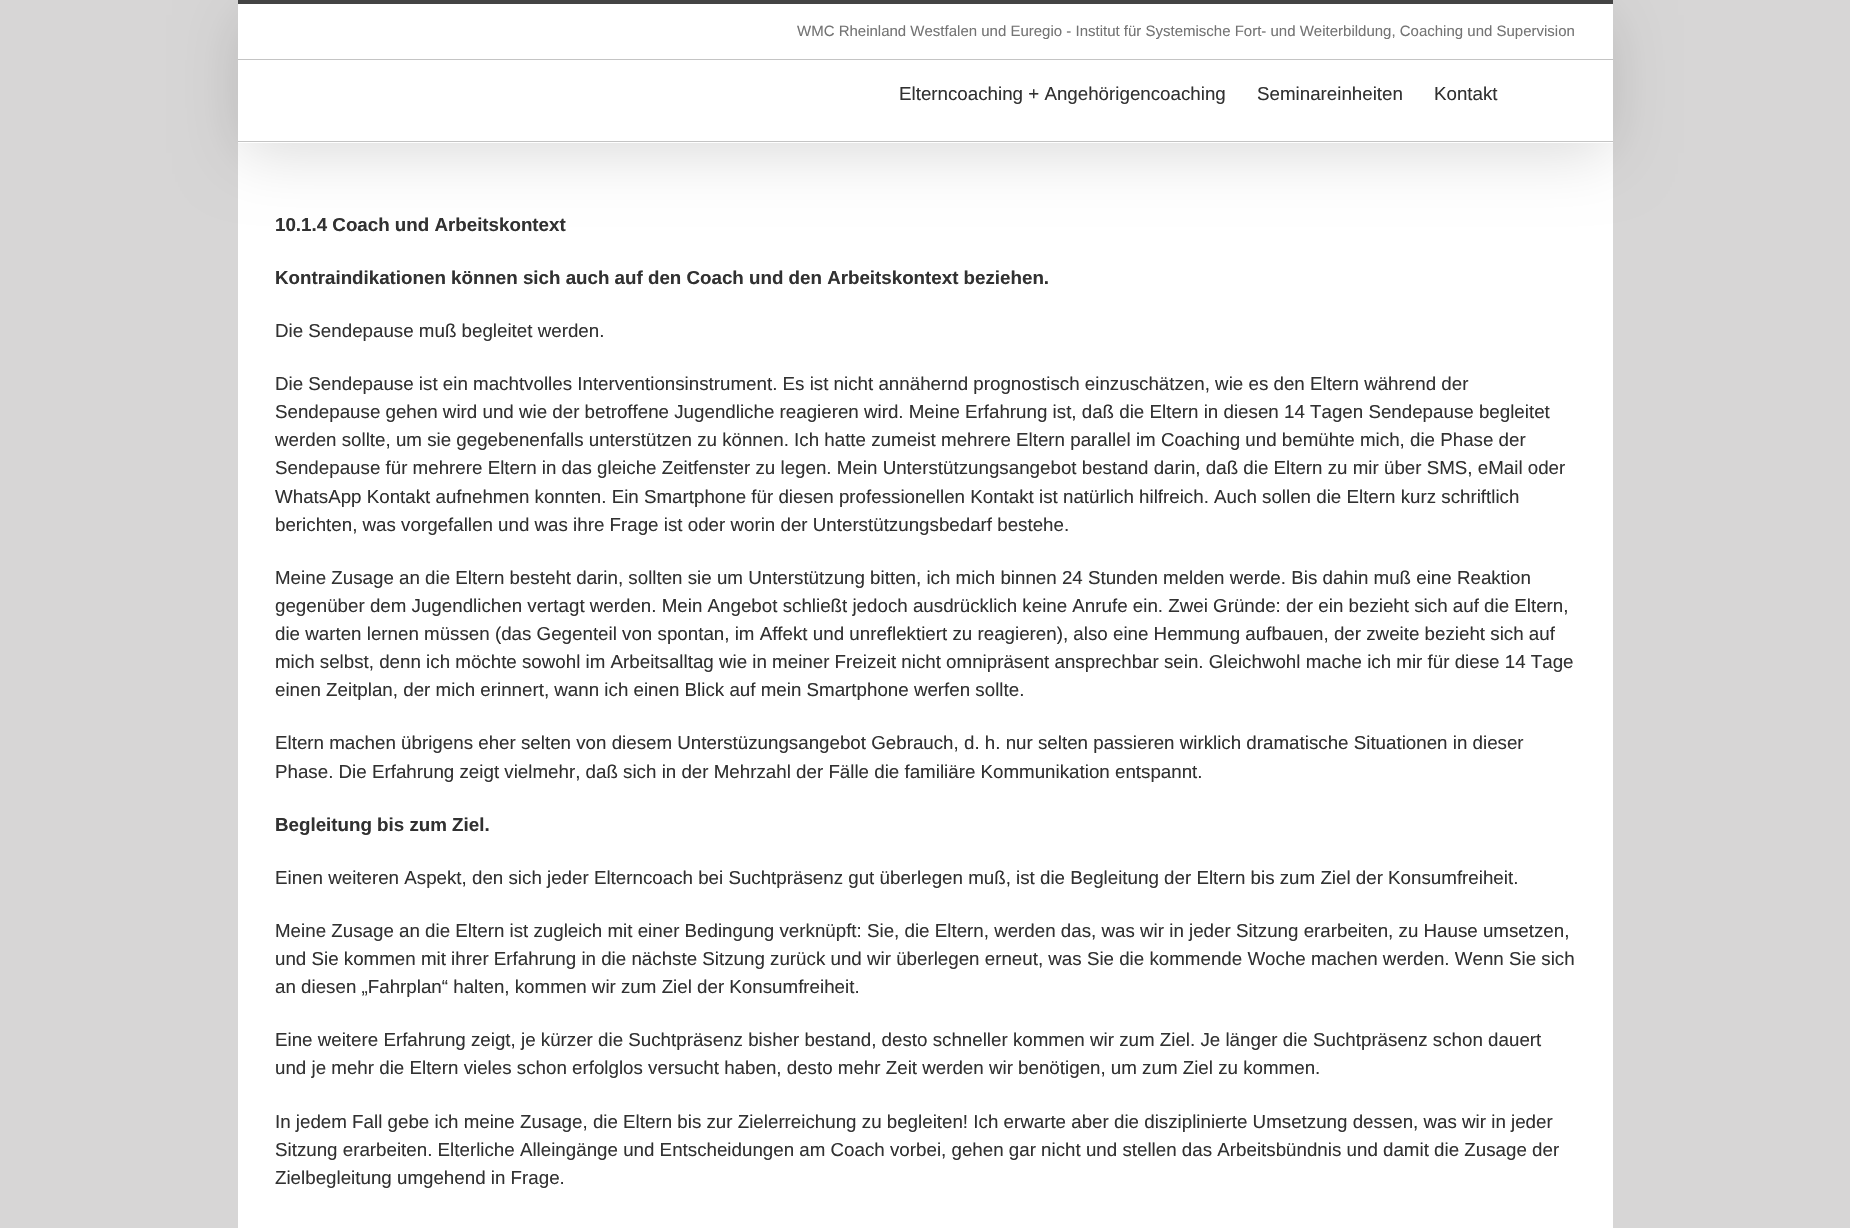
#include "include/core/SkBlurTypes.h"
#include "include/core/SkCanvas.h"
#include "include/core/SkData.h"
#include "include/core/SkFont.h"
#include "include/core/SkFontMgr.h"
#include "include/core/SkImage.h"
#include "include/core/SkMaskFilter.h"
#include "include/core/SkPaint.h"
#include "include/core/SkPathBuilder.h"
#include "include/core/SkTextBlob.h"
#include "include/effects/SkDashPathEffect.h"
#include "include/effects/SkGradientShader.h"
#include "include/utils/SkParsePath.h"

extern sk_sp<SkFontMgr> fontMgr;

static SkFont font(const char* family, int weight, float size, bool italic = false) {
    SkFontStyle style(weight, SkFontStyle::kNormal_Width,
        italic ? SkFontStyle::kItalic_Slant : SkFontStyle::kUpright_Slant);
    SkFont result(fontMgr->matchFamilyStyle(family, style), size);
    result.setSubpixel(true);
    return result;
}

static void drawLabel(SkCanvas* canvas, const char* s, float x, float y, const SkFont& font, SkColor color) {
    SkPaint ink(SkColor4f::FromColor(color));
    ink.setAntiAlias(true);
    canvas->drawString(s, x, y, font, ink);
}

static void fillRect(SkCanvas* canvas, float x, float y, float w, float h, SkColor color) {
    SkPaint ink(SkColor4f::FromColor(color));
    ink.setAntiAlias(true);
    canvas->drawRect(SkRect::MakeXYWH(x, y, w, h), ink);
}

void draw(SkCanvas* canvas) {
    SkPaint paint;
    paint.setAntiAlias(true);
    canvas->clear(0xFFD7D6D6);
    fillRect(canvas, 238, 143, 1375, 1085, 0xFFFFFFFF);
    paint.setColor(0x24000000);
    paint.setMaskFilter(SkMaskFilter::MakeBlur(kNormal_SkBlurStyle, 31));
    canvas->drawRect(SkRect::MakeXYWH(240, 15, 1370, 138), paint);
    paint.setMaskFilter(nullptr);
    fillRect(canvas, 238, 4, 1375, 55, 0xFFFFFFFF);
    fillRect(canvas, 238, 0, 1375, 4, 0xFF444444);
    fillRect(canvas, 238, 59, 1375, 1, 0xFFC4C4C4);
    SkFont font1 = font("Liberation Sans", 400, 15);
    drawLabel(canvas, "WMC Rheinland Westfalen und Euregio - Institut für Systemische Fort- und Weiterbildung, Coaching und Supervision", 797, 36, font1, 0xFF747474);
    fillRect(canvas, 238, 60, 1375, 83, 0xFFFFFFFF);
    fillRect(canvas, 238, 141, 1375, 1, 0xFFC4C4C4);
    SkFont font2 = font("Liberation Sans", 400, 18.75f);
    drawLabel(canvas, "Elterncoaching + Angehörigencoaching", 899, 100, font2, 0xFF313131);
    drawLabel(canvas, "Seminareinheiten", 1257, 100, font2, 0xFF313131);
    drawLabel(canvas, "Kontakt", 1434, 100, font2, 0xFF313131);
    SkFont font3 = font("Liberation Sans", 700, 18.75f);
    drawLabel(canvas, "10.1.4 Coach und Arbeitskontext", 275, 231, font3, 0xFF313131);
    drawLabel(canvas, "Kontraindikationen können sich auch auf den Coach und den Arbeitskontext beziehen.", 275, 284, font3, 0xFF313131);
    drawLabel(canvas, "Die Sendepause muß begleitet werden.", 275, 337, font2, 0xFF313131);
    drawLabel(canvas, "Die Sendepause ist ein machtvolles Interventionsinstrument. Es ist nicht annähernd prognostisch einzuschätzen, wie es den Eltern während der", 275, 390, font2, 0xFF313131);
    drawLabel(canvas, "Sendepause gehen wird und wie der betroffene Jugendliche reagieren wird. Meine Erfahrung ist, daß die Eltern in diesen 14 Tagen Sendepause begleitet", 275, 418, font2, 0xFF313131);
    drawLabel(canvas, "werden sollte, um sie gegebenenfalls unterstützen zu können. Ich hatte zumeist mehrere Eltern parallel im Coaching und bemühte mich, die Phase der", 275, 446, font2, 0xFF313131);
    drawLabel(canvas, "Sendepause für mehrere Eltern in das gleiche Zeitfenster zu legen. Mein Unterstützungsangebot bestand darin, daß die Eltern zu mir über SMS, eMail oder", 275, 474, font2, 0xFF313131);
    drawLabel(canvas, "WhatsApp Kontakt aufnehmen konnten. Ein Smartphone für diesen professionellen Kontakt ist natürlich hilfreich. Auch sollen die Eltern kurz schriftlich", 275, 503, font2, 0xFF313131);
    drawLabel(canvas, "berichten, was vorgefallen und was ihre Frage ist oder worin der Unterstützungsbedarf bestehe.", 275, 531, font2, 0xFF313131);
    drawLabel(canvas, "Meine Zusage an die Eltern besteht darin, sollten sie um Unterstützung bitten, ich mich binnen 24 Stunden melden werde. Bis dahin muß eine Reaktion", 275, 584, font2, 0xFF313131);
    drawLabel(canvas, "gegenüber dem Jugendlichen vertagt werden. Mein Angebot schließt jedoch ausdrücklich keine Anrufe ein. Zwei Gründe: der ein bezieht sich auf die Eltern,", 275, 612, font2, 0xFF313131);
    drawLabel(canvas, "die warten lernen müssen (das Gegenteil von spontan, im Affekt und unreflektiert zu reagieren), also eine Hemmung aufbauen, der zweite bezieht sich auf", 275, 640, font2, 0xFF313131);
    drawLabel(canvas, "mich selbst, denn ich möchte sowohl im Arbeitsalltag wie in meiner Freizeit nicht omnipräsent ansprechbar sein. Gleichwohl mache ich mir für diese 14 Tage", 275, 668, font2, 0xFF313131);
    drawLabel(canvas, "einen Zeitplan, der mich erinnert, wann ich einen Blick auf mein Smartphone werfen sollte.", 275, 696, font2, 0xFF313131);
    drawLabel(canvas, "Eltern machen übrigens eher selten von diesem Unterstüzungsangebot Gebrauch, d. h. nur selten passieren wirklich dramatische Situationen in dieser", 275, 749, font2, 0xFF313131);
    drawLabel(canvas, "Phase. Die Erfahrung zeigt vielmehr, daß sich in der Mehrzahl der Fälle die familiäre Kommunikation entspannt.", 275, 778, font2, 0xFF313131);
    drawLabel(canvas, "Begleitung bis zum Ziel.", 275, 831, font3, 0xFF313131);
    drawLabel(canvas, "Einen weiteren Aspekt, den sich jeder Elterncoach bei Suchtpräsenz gut überlegen muß, ist die Begleitung der Eltern bis zum Ziel der Konsumfreiheit.", 275, 884, font2, 0xFF313131);
    drawLabel(canvas, "Meine Zusage an die Eltern ist zugleich mit einer Bedingung verknüpft: Sie, die Eltern, werden das, was wir in jeder Sitzung erarbeiten, zu Hause umsetzen,", 275, 937, font2, 0xFF313131);
    drawLabel(canvas, "und Sie kommen mit ihrer Erfahrung in die nächste Sitzung zurück und wir überlegen erneut, was Sie die kommende Woche machen werden. Wenn Sie sich", 275, 965, font2, 0xFF313131);
    drawLabel(canvas, "an diesen „Fahrplan“ halten, kommen wir zum Ziel der Konsumfreiheit.", 275, 993, font2, 0xFF313131);
    drawLabel(canvas, "Eine weitere Erfahrung zeigt, je kürzer die Suchtpräsenz bisher bestand, desto schneller kommen wir zum Ziel. Je länger die Suchtpräsenz schon dauert", 275, 1046, font2, 0xFF313131);
    drawLabel(canvas, "und je mehr die Eltern vieles schon erfolglos versucht haben, desto mehr Zeit werden wir benötigen, um zum Ziel zu kommen.", 275, 1074, font2, 0xFF313131);
    drawLabel(canvas, "In jedem Fall gebe ich meine Zusage, die Eltern bis zur Zielerreichung zu begleiten! Ich erwarte aber die disziplinierte Umsetzung dessen, was wir in jeder", 275, 1128, font2, 0xFF313131);
    drawLabel(canvas, "Sitzung erarbeiten. Elterliche Alleingänge und Entscheidungen am Coach vorbei, gehen gar nicht und stellen das Arbeitsbündnis und damit die Zusage der", 275, 1156, font2, 0xFF313131);
    drawLabel(canvas, "Zielbegleitung umgehend in Frage.", 275, 1184, font2, 0xFF313131);
}
